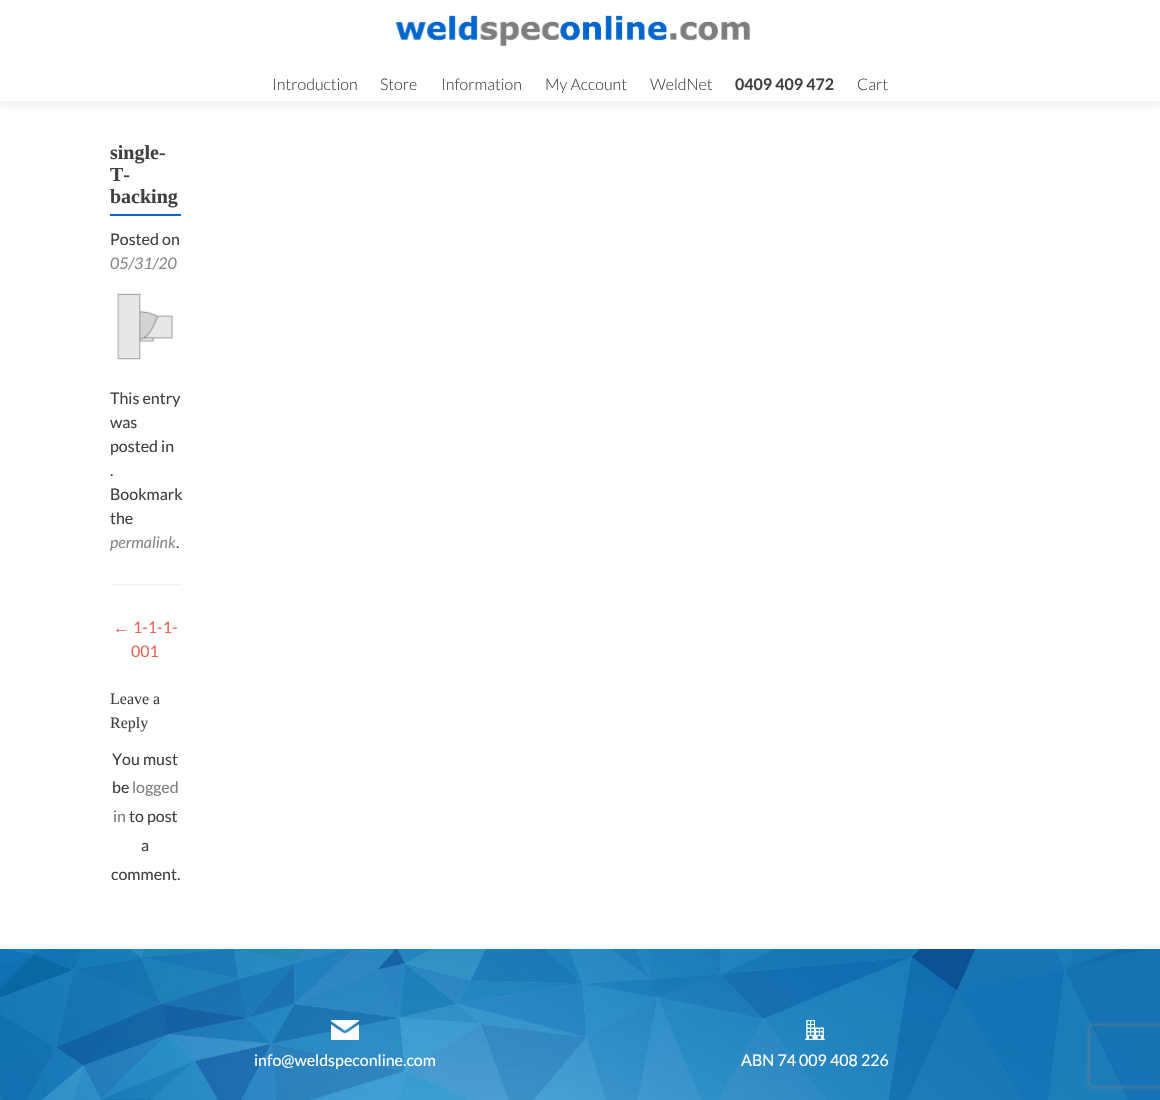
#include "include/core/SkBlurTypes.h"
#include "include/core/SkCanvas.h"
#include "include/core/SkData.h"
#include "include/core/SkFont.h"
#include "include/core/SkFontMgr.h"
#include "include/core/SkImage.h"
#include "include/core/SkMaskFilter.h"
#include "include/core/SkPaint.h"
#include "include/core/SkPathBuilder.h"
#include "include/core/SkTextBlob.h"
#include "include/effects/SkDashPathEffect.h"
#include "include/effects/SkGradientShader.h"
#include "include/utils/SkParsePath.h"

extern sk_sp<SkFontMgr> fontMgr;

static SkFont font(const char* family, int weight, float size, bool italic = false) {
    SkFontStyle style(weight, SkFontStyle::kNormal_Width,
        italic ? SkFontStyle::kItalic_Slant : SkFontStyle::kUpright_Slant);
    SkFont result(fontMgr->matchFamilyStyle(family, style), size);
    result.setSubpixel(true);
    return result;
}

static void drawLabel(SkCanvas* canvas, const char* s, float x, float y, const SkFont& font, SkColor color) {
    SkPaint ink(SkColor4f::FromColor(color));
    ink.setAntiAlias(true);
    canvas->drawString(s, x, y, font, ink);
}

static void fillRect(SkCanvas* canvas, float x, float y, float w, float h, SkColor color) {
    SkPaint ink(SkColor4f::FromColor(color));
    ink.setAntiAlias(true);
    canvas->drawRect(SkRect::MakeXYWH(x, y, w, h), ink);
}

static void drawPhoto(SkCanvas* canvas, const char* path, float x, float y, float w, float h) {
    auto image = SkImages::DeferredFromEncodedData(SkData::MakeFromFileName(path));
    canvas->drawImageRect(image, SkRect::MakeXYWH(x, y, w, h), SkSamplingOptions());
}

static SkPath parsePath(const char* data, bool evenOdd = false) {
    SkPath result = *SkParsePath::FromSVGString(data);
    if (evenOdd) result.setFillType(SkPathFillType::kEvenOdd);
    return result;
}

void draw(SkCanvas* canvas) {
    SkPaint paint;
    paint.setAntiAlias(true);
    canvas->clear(0xFFFFFFFF);
    canvas->save();
    canvas->clipRect(SkRect::MakeXYWH(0, 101, 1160, 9));
    paint.setColor(0x14323232);
    paint.setMaskFilter(SkMaskFilter::MakeBlur(kNormal_SkBlurStyle, 5.5f));
    canvas->drawRect(SkRect::MakeXYWH(0, 5, 1160, 101), paint);
    paint.setMaskFilter(nullptr);
    canvas->restore();
    drawPhoto(canvas, "assets/img1.png", 395, 15, 355, 32);
    SkFont font1 = font("Lato", 300, 16);
    drawLabel(canvas, "Introduction", 272, 90, font1, 0xFF404040);
    drawLabel(canvas, "Store", 380, 90, font1, 0xFF404040);
    drawLabel(canvas, "Information", 441, 90, font1, 0xFF404040);
    drawLabel(canvas, "My Account", 545, 90, font1, 0xFF404040);
    drawLabel(canvas, "WeldNet", 650, 90, font1, 0xFF404040);
    SkFont font2 = font("Lato", 700, 16);
    drawLabel(canvas, "0409 409 472", 735, 90, font2, 0xFF404040);
    drawLabel(canvas, "Cart", 857, 90, font1, 0xFF404040);
    fillRect(canvas, 110, 584, 71, 1, 0xFFF2F2F2);
    SkFont font3 = font("Liberation Serif", 700, 20);
    drawLabel(canvas, "single-", 110, 159, font3, 0xFF404040);
    drawLabel(canvas, "T-", 110, 181, font3, 0xFF404040);
    drawLabel(canvas, "backing", 110, 203, font3, 0xFF404040);
    fillRect(canvas, 110, 214, 71, 2, 0xFF0264CF);
    SkFont font4 = font("Lato", 400, 16);
    drawLabel(canvas, "Posted on", 110, 245, font4, 0xFF404040);
    SkFont font5 = font("Lato", 400, 16, true);
    drawLabel(canvas, "05/31/20", 110, 269, font5, 0xFF888888);
    drawPhoto(canvas, "assets/img2.png", 117, 293, 56, 67);
    drawLabel(canvas, "This entry", 110, 404, font4, 0xFF404040);
    drawLabel(canvas, "was", 110, 428, font4, 0xFF404040);
    drawLabel(canvas, "posted in", 110, 452, font4, 0xFF404040);
    drawLabel(canvas, ".", 110, 476, font4, 0xFF404040);
    drawLabel(canvas, "Bookmark", 110, 500, font4, 0xFF404040);
    drawLabel(canvas, "the", 110, 524, font4, 0xFF404040);
    drawLabel(canvas, "permalink", 110, 548, font5, 0xFF888888);
    drawLabel(canvas, ".", 176, 548, font4, 0xFF404040);
    SkFont font6 = font("Liberation Sans", 400, 16);
    drawLabel(canvas, "←", 113, 633, font6, 0xFFE96656);
    drawLabel(canvas, "1-1-1-", 133, 633, font4, 0xFFE96656);
    drawLabel(canvas, "001", 131, 657, font4, 0xFFE96656);
    SkFont font7 = font("Liberation Serif", 400, 16);
    drawLabel(canvas, "Leave a", 110, 704, font7, 0xFF404040);
    drawLabel(canvas, "Reply", 110, 728, font7, 0xFF404040);
    drawLabel(canvas, "You must", 112, 765, font4, 0xFF404040);
    drawLabel(canvas, "be", 112, 793, font4, 0xFF404040);
    drawLabel(canvas, "logged", 132, 793, font4, 0xFF7E7E7E);
    drawLabel(canvas, "in", 113, 822, font4, 0xFF7E7E7E);
    drawLabel(canvas, "to post", 129, 822, font4, 0xFF404040);
    drawLabel(canvas, "a", 141, 851, font4, 0xFF404040);
    drawLabel(canvas, "comment.", 111, 880, font4, 0xFF404040);
    fillRect(canvas, 181, 161, 1, 1, 0xFFF2F2F2);
    drawPhoto(canvas, "assets/img3.png", 0, 949, 1160, 151);
    drawPhoto(canvas, "assets/img4.png", 331, 1020, 28, 20);
    drawLabel(canvas, "info@weldspeconline.com", 254, 1066, font4, 0xFFFFFFFF);
    drawPhoto(canvas, "assets/img5.png", 805, 1020, 20, 20);
    drawLabel(canvas, "ABN 74 009 408 226", 741, 1066, font4, 0xFFFFFFFF);
    canvas->save();
    canvas->clipPath(parsePath("M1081 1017H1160V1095H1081ZM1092 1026H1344C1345 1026 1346 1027 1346 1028V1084C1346 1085 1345 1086 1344 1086H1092C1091 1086 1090 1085 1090 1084V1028C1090 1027 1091 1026 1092 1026Z", true), true);
    paint.setColor(0xFF808080);
    paint.setMaskFilter(SkMaskFilter::MakeBlur(kNormal_SkBlurStyle, 2.5f));
    canvas->drawRoundRect(SkRect::MakeXYWH(1090, 1026, 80, 60), 2, 2, paint);
    paint.setMaskFilter(nullptr);
    canvas->restore();
}
